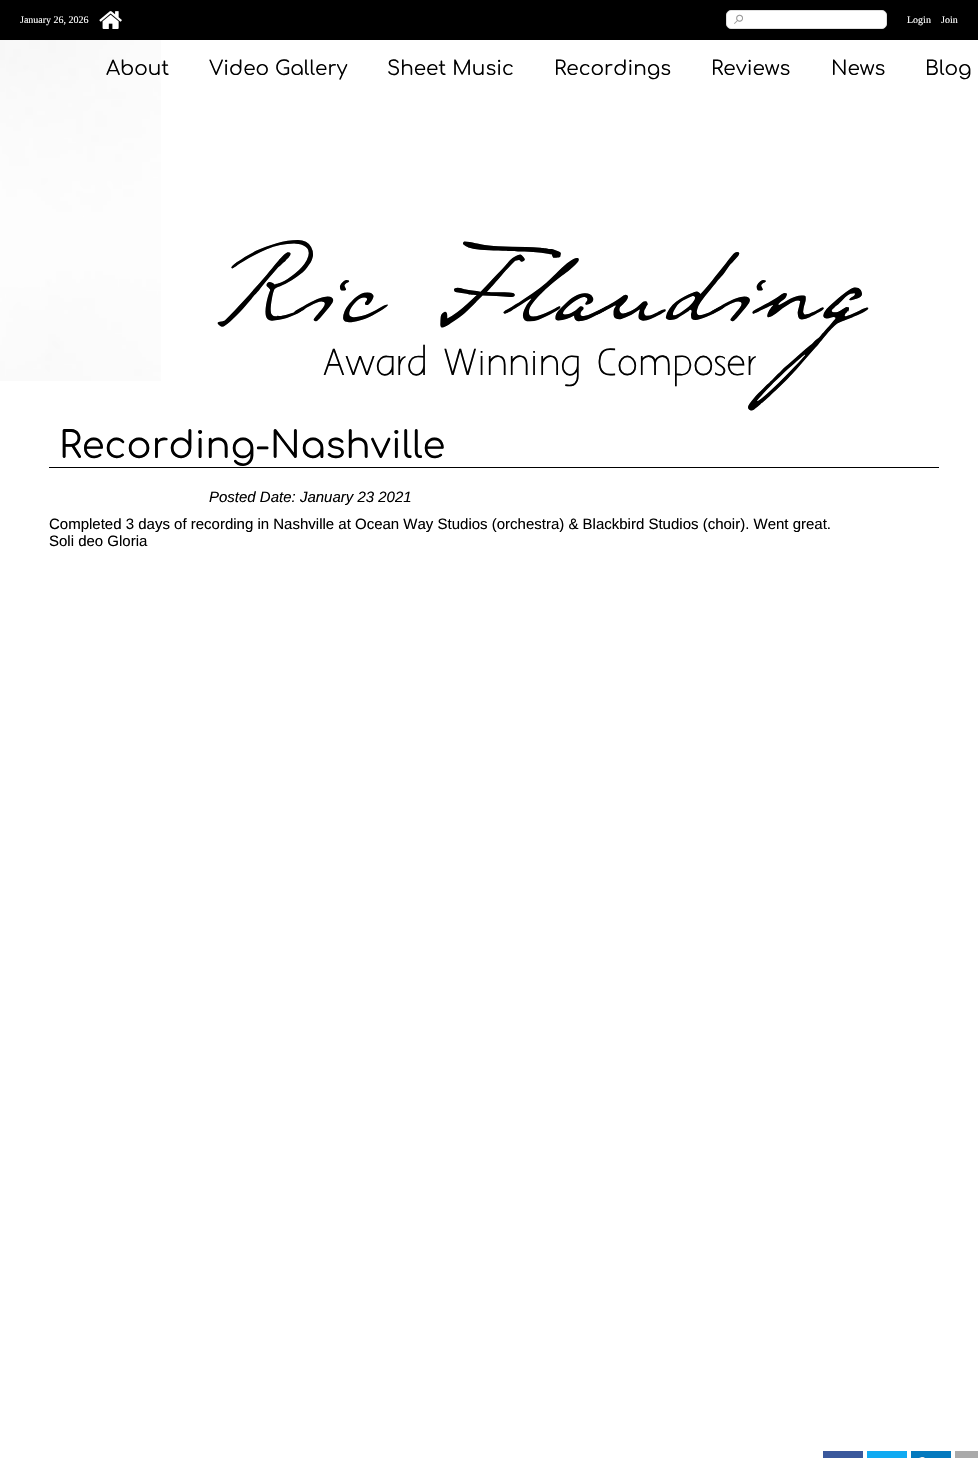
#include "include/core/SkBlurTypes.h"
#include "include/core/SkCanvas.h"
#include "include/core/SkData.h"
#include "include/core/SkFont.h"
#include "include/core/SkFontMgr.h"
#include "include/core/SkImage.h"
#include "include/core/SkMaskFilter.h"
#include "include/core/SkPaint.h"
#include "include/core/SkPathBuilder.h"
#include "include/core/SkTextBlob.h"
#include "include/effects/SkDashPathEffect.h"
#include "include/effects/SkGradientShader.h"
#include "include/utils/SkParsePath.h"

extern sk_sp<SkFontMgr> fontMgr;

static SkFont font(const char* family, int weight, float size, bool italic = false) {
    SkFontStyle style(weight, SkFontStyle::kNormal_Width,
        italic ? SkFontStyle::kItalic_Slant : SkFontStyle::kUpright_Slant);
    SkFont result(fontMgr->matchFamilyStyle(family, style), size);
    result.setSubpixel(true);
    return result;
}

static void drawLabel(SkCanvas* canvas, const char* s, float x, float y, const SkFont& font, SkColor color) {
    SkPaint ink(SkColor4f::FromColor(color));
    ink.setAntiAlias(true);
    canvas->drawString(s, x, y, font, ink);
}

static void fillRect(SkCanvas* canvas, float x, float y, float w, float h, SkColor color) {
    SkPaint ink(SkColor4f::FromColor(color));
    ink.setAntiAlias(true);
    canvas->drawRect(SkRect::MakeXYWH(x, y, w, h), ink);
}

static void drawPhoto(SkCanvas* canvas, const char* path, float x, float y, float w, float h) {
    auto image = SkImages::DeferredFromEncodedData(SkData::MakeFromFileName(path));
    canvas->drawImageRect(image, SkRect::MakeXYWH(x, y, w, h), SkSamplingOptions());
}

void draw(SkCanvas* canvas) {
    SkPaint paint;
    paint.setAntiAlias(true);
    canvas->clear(0xFFFFFFFF);
    fillRect(canvas, 0, 0, 978, 40, 0xFF000000);
    SkFont font1 = font("Liberation Serif", 400, 10);
    drawLabel(canvas, "January 26, 2026", 20, 23, font1, 0xFFFFFFFF);
    drawPhoto(canvas, "assets/img1.png", 99, 11, 23, 18);
    paint.setColor(0xFFFFFFFF);
    canvas->drawRoundRect(SkRect::MakeXYWH(726.5f, 10.5f, 160, 18), 4.5f, 4.5f, paint);
    paint.setStroke(true);
    paint.setStrokeWidth(1);
    paint.setColor(0xFFDFDFDF);
    canvas->drawRoundRect(SkRect::MakeXYWH(726.5f, 10.5f, 160, 18), 4.5f, 4.5f, paint);
    SkFont font2 = font("FreeSerif", 400, 20);
    drawLabel(canvas, "⌕", 734, 24, font2, 0xFF999999);
    drawLabel(canvas, "Login", 907, 23, font1, 0xFFFFFFFF);
    drawLabel(canvas, "Join", 941, 23, font1, 0xFFFFFFFF);
    drawPhoto(canvas, "assets/img2.png", 0, 40, 161, 341);
    SkFont font3 = font("Comfortaa", 400, 20);
    drawLabel(canvas, "About", 106, 75, font3, 0xFF000000);
    drawLabel(canvas, "Video Gallery", 209, 75, font3, 0xFF000000);
    drawLabel(canvas, "Sheet Music", 387, 75, font3, 0xFF000000);
    drawLabel(canvas, "Recordings", 554, 75, font3, 0xFF000000);
    drawLabel(canvas, "Reviews", 711, 75, font3, 0xFF000000);
    drawLabel(canvas, "News", 831, 75, font3, 0xFF000000);
    drawLabel(canvas, "Blog", 925, 75, font3, 0xFF000000);
    fillRect(canvas, 49, 467, 890, 1, 0xFF000000);
    SkFont font4 = font("Comfortaa", 400, 37);
    drawLabel(canvas, "Recording-Nashville", 59, 458, font4, 0xFF000000);
    SkFont font5 = font("Liberation Sans", 400, 15, true);
    drawLabel(canvas, "Posted Date: January 23 2021", 209, 502, font5, 0xFF000000);
    SkFont font6 = font("Liberation Sans", 400, 15);
    drawLabel(canvas, "Completed 3 days of recording in Nashville at Ocean Way Studios (orchestra) & Blackbird Studios (choir). Went great.", 49, 529, font6, 0xFF000000);
    drawLabel(canvas, "Soli deo Gloria", 49, 546, font6, 0xFF000000);
    SkFont font7 = font("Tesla", 400, 130);
    drawLabel(canvas, "Ric Flauding", 201, 320, font7, 0xFF000000);
    SkFont font8 = font("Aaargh", 400, 33);
    drawLabel(canvas, "Award Winning Composer", 323, 375, font8, 0xFF000000);
    fillRect(canvas, 823, 1451, 40, 7, 0xFF3A589C);
    fillRect(canvas, 867, 1451, 40, 7, 0xFF10AAF2);
    drawPhoto(canvas, "assets/img3.png", 911, 1451, 40, 7);
    fillRect(canvas, 955, 1451, 23, 7, 0xFFAAAAAA);
}
